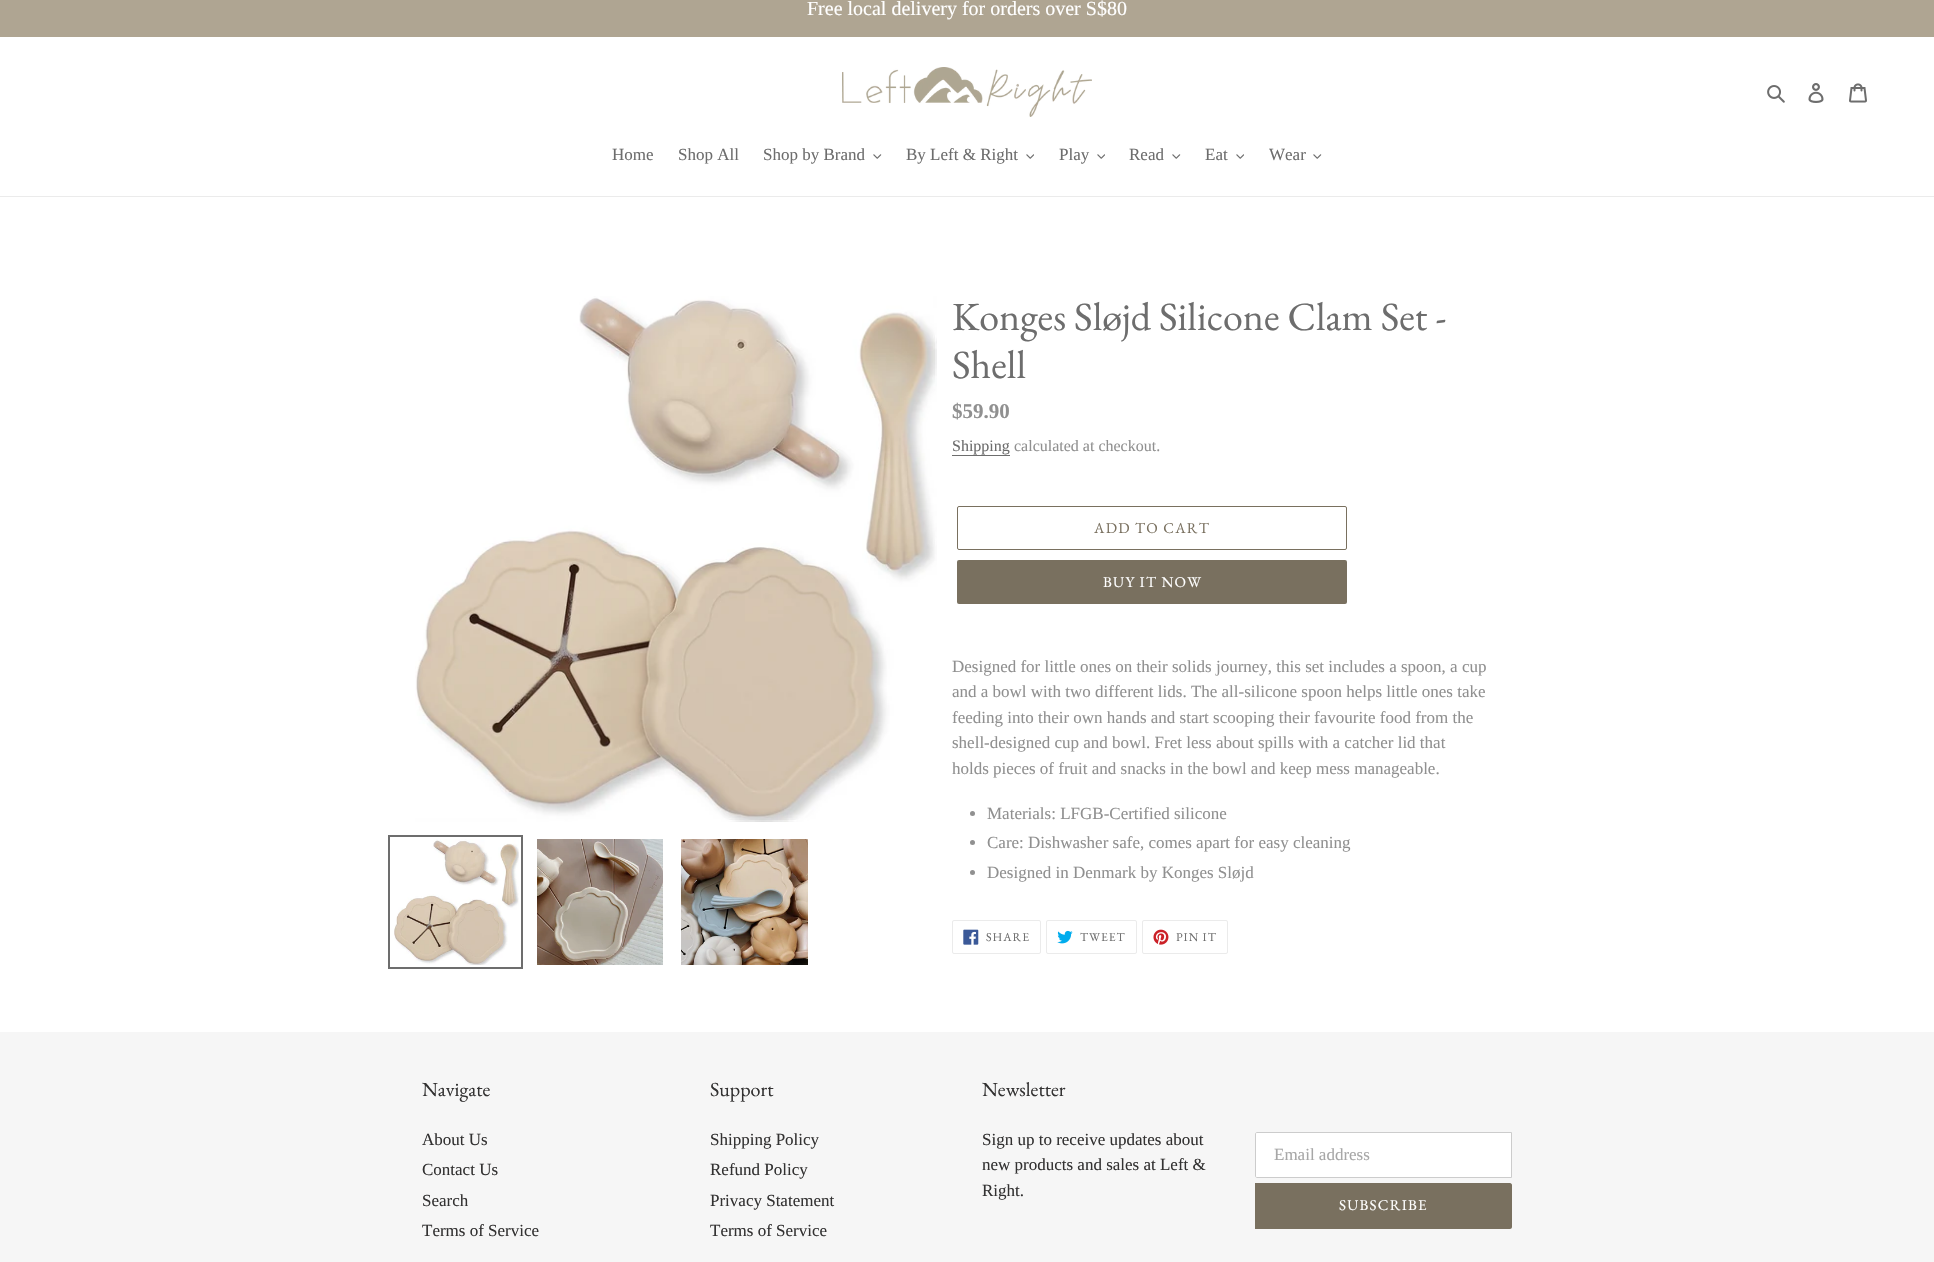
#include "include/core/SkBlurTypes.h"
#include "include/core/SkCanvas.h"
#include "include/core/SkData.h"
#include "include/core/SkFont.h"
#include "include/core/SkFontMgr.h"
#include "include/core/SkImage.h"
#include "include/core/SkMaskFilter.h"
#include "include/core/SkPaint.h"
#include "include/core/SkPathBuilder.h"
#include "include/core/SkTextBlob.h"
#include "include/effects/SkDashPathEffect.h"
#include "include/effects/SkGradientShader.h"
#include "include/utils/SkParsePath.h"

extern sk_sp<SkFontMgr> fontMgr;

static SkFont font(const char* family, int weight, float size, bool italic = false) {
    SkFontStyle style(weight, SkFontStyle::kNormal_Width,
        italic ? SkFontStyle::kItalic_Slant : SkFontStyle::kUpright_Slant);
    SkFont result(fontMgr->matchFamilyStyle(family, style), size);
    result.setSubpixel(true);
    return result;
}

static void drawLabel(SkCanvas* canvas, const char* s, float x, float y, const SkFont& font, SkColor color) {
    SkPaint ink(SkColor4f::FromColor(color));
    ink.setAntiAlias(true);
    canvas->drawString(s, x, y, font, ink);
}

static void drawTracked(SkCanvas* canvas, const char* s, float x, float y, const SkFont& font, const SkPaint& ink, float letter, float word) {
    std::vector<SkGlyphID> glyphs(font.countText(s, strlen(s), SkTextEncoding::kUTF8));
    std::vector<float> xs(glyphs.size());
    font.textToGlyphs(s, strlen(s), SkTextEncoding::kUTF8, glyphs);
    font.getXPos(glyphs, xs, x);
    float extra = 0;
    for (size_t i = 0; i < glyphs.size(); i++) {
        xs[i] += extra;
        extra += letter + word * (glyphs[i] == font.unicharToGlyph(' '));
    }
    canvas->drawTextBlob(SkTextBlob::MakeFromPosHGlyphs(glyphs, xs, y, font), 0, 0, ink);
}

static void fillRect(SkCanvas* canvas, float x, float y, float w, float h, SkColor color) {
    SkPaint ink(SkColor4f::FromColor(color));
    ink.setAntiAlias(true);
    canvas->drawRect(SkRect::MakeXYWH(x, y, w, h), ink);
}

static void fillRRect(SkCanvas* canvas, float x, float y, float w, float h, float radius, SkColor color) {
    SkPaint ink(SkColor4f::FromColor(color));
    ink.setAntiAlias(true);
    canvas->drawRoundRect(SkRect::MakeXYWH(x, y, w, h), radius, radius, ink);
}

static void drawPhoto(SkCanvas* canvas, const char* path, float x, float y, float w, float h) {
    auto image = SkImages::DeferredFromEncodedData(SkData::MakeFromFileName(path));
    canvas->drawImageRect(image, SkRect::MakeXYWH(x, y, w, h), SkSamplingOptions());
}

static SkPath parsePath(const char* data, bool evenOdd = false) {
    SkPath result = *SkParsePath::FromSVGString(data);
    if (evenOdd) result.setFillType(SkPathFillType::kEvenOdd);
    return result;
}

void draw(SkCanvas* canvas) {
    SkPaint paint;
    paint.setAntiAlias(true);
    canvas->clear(0xFFFFFFFF);
    fillRect(canvas, 0, 0, 1934, 37, 0xFFAFA592);
    SkFont font1 = font("Liberation Serif", 400, 20);
    drawLabel(canvas, "Free local delivery for orders over S$80", 807, 15, font1, 0xFFFFFFFF);
    drawPhoto(canvas, "assets/img1.png", 842, 67, 250, 50);
    drawPhoto(canvas, "assets/img2.png", 1767, 85, 18, 18);
    drawPhoto(canvas, "assets/img3.png", 1808, 83, 16, 20);
    drawPhoto(canvas, "assets/img4.png", 1849, 83, 18, 20);
    fillRect(canvas, 0, 196, 1934, 1, 0xFFEBEBEB);
    SkFont font2 = font("Liberation Serif", 400, 17);
    drawLabel(canvas, "Home", 612, 160, font2, 0xFF6D6D6D);
    drawLabel(canvas, "Shop All", 678, 160, font2, 0xFF6D6D6D);
    drawLabel(canvas, "Shop by Brand", 763, 160, font2, 0xFF6D6D6D);
    drawPhoto(canvas, "assets/img5.png", 873, 154, 9, 5);
    drawLabel(canvas, "By Left & Right", 906, 160, font2, 0xFF6D6D6D);
    drawPhoto(canvas, "assets/img6.png", 1026, 154, 8, 5);
    drawLabel(canvas, "Play", 1059, 160, font2, 0xFF6D6D6D);
    drawPhoto(canvas, "assets/img6.png", 1097, 154, 8, 5);
    drawLabel(canvas, "Read", 1129, 160, font2, 0xFF6D6D6D);
    drawPhoto(canvas, "assets/img5.png", 1172, 154, 9, 5);
    drawLabel(canvas, "Eat", 1205, 160, font2, 0xFF6D6D6D);
    drawPhoto(canvas, "assets/img6.png", 1236, 154, 8, 5);
    drawLabel(canvas, "Wear", 1269, 160, font2, 0xFF6D6D6D);
    drawPhoto(canvas, "assets/img5.png", 1313, 154, 9, 5);
    drawPhoto(canvas, "assets/img7.png", 415, 296, 522, 526);
    paint.setStroke(true);
    paint.setStrokeWidth(2);
    paint.setColor(0xFF6D6D6D);
    canvas->drawRect(SkRect::MakeXYWH(389, 836, 133, 132), paint);
    drawPhoto(canvas, "assets/img8.png", 394, 839, 125, 126);
    drawPhoto(canvas, "assets/img9.png", 537, 839, 126, 126);
    drawPhoto(canvas, "assets/img10.png", 681, 839, 127, 126);
    SkFont font3 = font("EB Garamond", 400, 40);
    drawLabel(canvas, "Konges Sløjd Silicone Clam Set -", 952, 330, font3, 0xFF6D6D6D);
    drawLabel(canvas, "Shell", 952, 378, font3, 0xFF6D6D6D);
    SkFont font4 = font("Liberation Serif", 700, 21);
    drawLabel(canvas, "$59.90", 952, 418, font4, 0xFF909090);
    SkFont font5 = font("Liberation Serif", 400, 16);
    drawLabel(canvas, "Shipping", 952, 451, font5, 0xFF6D6D6D);
    fillRect(canvas, 952, 455, 58, 1, 0xFF6D6D6D);
    drawLabel(canvas, "calculated at checkout.", 1014, 451, font5, 0xFF909090);
    paint.setStrokeWidth(1);
    paint.setColor(0xFF79705F);
    canvas->drawRoundRect(SkRect::MakeXYWH(957.5f, 506.5f, 389, 43), 1.5f, 1.5f, paint);
    SkFont font6 = font("EB Garamond", 400, 15);
    paint.setStroke(false);
    drawTracked(canvas, "ADD TO CART", 1094, 533, font6, paint, 1.25f, 0);
    fillRRect(canvas, 957, 560, 390, 44, 2, 0xFF79705F);
    paint.setColor(0xFFFFFFFF);
    drawTracked(canvas, "BUY IT NOW", 1103, 587, font6, paint, 1.25f, 0);
    drawLabel(canvas, "Designed for little ones on their solids journey, this set includes a spoon, a cup", 952, 672, font2, 0xFF909090);
    drawLabel(canvas, "and a bowl with two different lids. The all-silicone spoon helps little ones take", 952, 697, font2, 0xFF909090);
    drawLabel(canvas, "feeding into their own hands and start scooping their favourite food from the", 952, 723, font2, 0xFF909090);
    drawLabel(canvas, "shell-designed cup and bowl. Fret less about spills with a catcher lid that", 952, 748, font2, 0xFF909090);
    drawLabel(canvas, "holds pieces of fruit and snacks in the bowl and keep mess manageable.", 952, 774, font2, 0xFF909090);
    paint.setColor(0xFF909090);
    canvas->drawCircle(972.5f, 813.5f, 2.5f, paint);
    drawLabel(canvas, "Materials: LFGB-Certified silicone", 987, 819, font2, 0xFF909090);
    canvas->drawCircle(972.5f, 842.5f, 2.5f, paint);
    drawLabel(canvas, "Care: Dishwasher safe, comes apart for easy cleaning", 987, 848, font2, 0xFF909090);
    canvas->drawCircle(972.5f, 872.5f, 2.5f, paint);
    drawLabel(canvas, "Designed in Denmark by Konges Sløjd", 987, 878, font2, 0xFF909090);
    paint.setStroke(true);
    paint.setColor(0xFFEBEBEB);
    canvas->drawRoundRect(SkRect::MakeXYWH(952.5f, 920.5f, 88, 33), 1.5f, 1.5f, paint);
    drawPhoto(canvas, "assets/img11.png", 963, 929, 16, 16);
    SkFont font7 = font("EB Garamond", 400, 12);
    paint.setStroke(false);
    paint.setColor(0xFF6D6D6D);
    drawTracked(canvas, "SHARE", 986, 941, font7, paint, 1, 0);
    paint.setStroke(true);
    paint.setColor(0xFFEBEBEB);
    canvas->drawRoundRect(SkRect::MakeXYWH(1046.5f, 920.5f, 90, 33), 1.5f, 1.5f, paint);
    drawPhoto(canvas, "assets/img12.png", 1057, 930, 16, 14);
    paint.setStroke(false);
    paint.setColor(0xFF6D6D6D);
    drawTracked(canvas, "TWEET", 1080, 941, font7, paint, 1, 0);
    paint.setStroke(true);
    paint.setColor(0xFFEBEBEB);
    canvas->drawRoundRect(SkRect::MakeXYWH(1142.5f, 920.5f, 85, 33), 1.5f, 1.5f, paint);
    drawPhoto(canvas, "assets/img13.png", 1153, 929, 16, 16);
    paint.setStroke(false);
    paint.setColor(0xFF6D6D6D);
    drawTracked(canvas, "PIN IT", 1176, 941, font7, paint, 1, 0);
    fillRect(canvas, 0, 1032, 1934, 230, 0xFFF6F6F6);
    SkFont font8 = font("EB Garamond", 400, 20);
    drawLabel(canvas, "Navigate", 422, 1096, font8, 0xFF333232);
    drawLabel(canvas, "About Us", 422, 1145, font2, 0xFF333232);
    drawLabel(canvas, "Contact Us", 422, 1175, font2, 0xFF333232);
    drawLabel(canvas, "Search", 422, 1206, font2, 0xFF333232);
    drawLabel(canvas, "Terms of Service", 422, 1236, font2, 0xFF333232);
    drawLabel(canvas, "Support", 710, 1096, font8, 0xFF333232);
    drawLabel(canvas, "Shipping Policy", 710, 1145, font2, 0xFF333232);
    drawLabel(canvas, "Refund Policy", 710, 1175, font2, 0xFF333232);
    drawLabel(canvas, "Privacy Statement", 710, 1206, font2, 0xFF333232);
    drawLabel(canvas, "Terms of Service", 710, 1236, font2, 0xFF333232);
    drawLabel(canvas, "Newsletter", 982, 1096, font8, 0xFF333232);
    drawLabel(canvas, "Sign up to receive updates about", 982, 1145, font2, 0xFF333232);
    drawLabel(canvas, "new products and sales at Left &", 982, 1170, font2, 0xFF333232);
    drawLabel(canvas, "Right.", 982, 1196, font2, 0xFF333232);
    paint.setColor(0xFFFFFFFF);
    canvas->drawPath(parsePath("M1257 1132.5H1511.5V1177.5H1257C1256 1177.5 1255.5 1177 1255.5 1176V1134C1255.5 1133 1256 1132.5 1257 1132.5Z"), paint);
    paint.setStroke(true);
    paint.setColor(0xFFCCCCCC);
    canvas->drawPath(parsePath("M1257 1132.5H1511.5V1177.5H1257C1256 1177.5 1255.5 1177 1255.5 1176V1134C1255.5 1133 1256 1132.5 1257 1132.5Z"), paint);
    drawLabel(canvas, "Email address", 1274, 1160, font2, 0xFFA7A7A7);
    paint.setStroke(false);
    paint.setColor(0xFF79705F);
    canvas->drawPath(parsePath("M1255 1183H1510C1511 1183 1512 1184 1512 1185V1227C1512 1228 1511 1229 1510 1229H1255Z"), paint);
    paint.setColor(0xFFFFFFFF);
    drawTracked(canvas, "SUBSCRIBE", 1339, 1210, font6, paint, 1.25f, 0);
}
